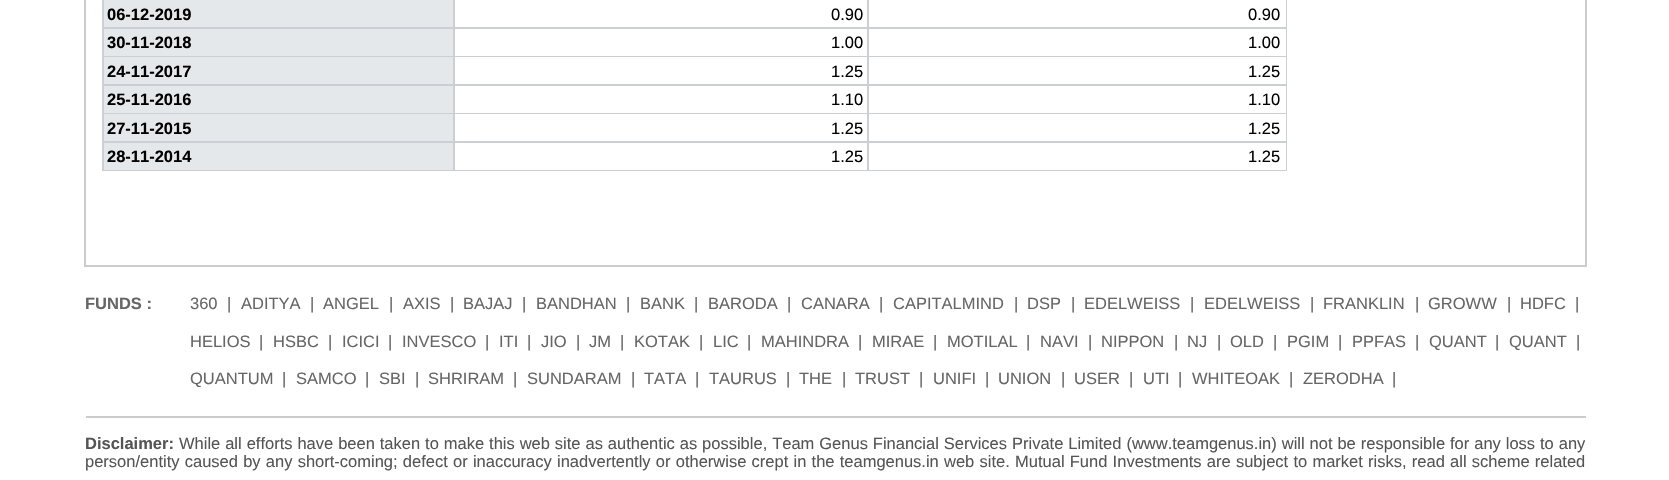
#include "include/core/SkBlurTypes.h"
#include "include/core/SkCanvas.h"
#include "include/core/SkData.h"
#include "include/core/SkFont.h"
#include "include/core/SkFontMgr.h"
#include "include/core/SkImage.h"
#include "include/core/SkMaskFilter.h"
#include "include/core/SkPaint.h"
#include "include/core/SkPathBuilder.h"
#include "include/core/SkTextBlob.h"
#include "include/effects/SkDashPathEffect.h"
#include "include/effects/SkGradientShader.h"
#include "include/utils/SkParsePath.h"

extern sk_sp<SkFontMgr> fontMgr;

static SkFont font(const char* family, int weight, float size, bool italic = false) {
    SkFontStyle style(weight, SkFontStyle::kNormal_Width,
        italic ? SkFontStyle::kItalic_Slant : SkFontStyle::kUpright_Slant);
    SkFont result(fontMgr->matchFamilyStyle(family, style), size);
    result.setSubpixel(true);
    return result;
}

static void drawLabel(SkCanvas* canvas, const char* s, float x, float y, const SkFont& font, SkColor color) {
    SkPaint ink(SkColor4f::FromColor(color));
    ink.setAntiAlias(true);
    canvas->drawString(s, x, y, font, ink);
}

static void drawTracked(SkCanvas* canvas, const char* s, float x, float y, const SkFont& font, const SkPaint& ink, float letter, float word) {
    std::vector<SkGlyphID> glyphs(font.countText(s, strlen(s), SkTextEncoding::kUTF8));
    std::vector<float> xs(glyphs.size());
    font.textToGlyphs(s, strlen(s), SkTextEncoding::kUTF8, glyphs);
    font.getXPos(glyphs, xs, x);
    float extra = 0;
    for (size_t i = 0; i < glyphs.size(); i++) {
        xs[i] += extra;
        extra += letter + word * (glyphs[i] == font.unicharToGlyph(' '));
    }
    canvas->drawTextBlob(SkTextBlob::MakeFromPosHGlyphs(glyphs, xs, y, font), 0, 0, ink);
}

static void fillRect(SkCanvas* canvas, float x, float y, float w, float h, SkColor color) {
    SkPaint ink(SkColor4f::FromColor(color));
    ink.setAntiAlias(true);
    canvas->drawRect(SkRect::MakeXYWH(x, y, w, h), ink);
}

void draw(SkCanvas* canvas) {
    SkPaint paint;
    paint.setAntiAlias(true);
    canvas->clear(0xFFFFFFFF);
    paint.setStroke(true);
    paint.setStrokeWidth(2);
    paint.setColor(0xFFCCCCCC);
    canvas->drawRect(SkRect::MakeXYWH(85, -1, 1501, 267), paint);
    fillRect(canvas, 102, 0, 1185, 171, 0xFFCBCED2);
    fillRect(canvas, 104, 0, 349, 27, 0xFFE5E8EB);
    SkFont font1 = font("Liberation Sans", 700, 16.5f);
    drawLabel(canvas, "06-12-2019", 107, 20, font1, 0xFF000000);
    fillRect(canvas, 455, 0, 412, 27, 0xFFFFFFFF);
    SkFont font2 = font("Liberation Sans", 400, 16.5f);
    drawLabel(canvas, "0.90", 831, 20, font2, 0xFF000000);
    fillRect(canvas, 869, 0, 417, 27, 0xFFFFFFFF);
    drawLabel(canvas, "0.90", 1248, 20, font2, 0xFF000000);
    fillRect(canvas, 104, 29, 349, 27, 0xFFE5E8EB);
    drawLabel(canvas, "30-11-2018", 107, 48, font1, 0xFF000000);
    fillRect(canvas, 455, 29, 412, 27, 0xFFFFFFFF);
    drawLabel(canvas, "1.00", 831, 48, font2, 0xFF000000);
    fillRect(canvas, 869, 29, 417, 27, 0xFFFFFFFF);
    drawLabel(canvas, "1.00", 1248, 48, font2, 0xFF000000);
    fillRect(canvas, 104, 57, 349, 27, 0xFFE5E8EB);
    drawLabel(canvas, "24-11-2017", 107, 77, font1, 0xFF000000);
    fillRect(canvas, 455, 57, 412, 27, 0xFFFFFFFF);
    drawLabel(canvas, "1.25", 831, 77, font2, 0xFF000000);
    fillRect(canvas, 869, 57, 417, 27, 0xFFFFFFFF);
    drawLabel(canvas, "1.25", 1248, 77, font2, 0xFF000000);
    fillRect(canvas, 104, 86, 349, 27, 0xFFE5E8EB);
    drawLabel(canvas, "25-11-2016", 107, 105, font1, 0xFF000000);
    fillRect(canvas, 455, 86, 412, 27, 0xFFFFFFFF);
    drawLabel(canvas, "1.10", 831, 105, font2, 0xFF000000);
    fillRect(canvas, 869, 86, 417, 27, 0xFFFFFFFF);
    drawLabel(canvas, "1.10", 1248, 105, font2, 0xFF000000);
    fillRect(canvas, 104, 114, 349, 27, 0xFFE5E8EB);
    drawLabel(canvas, "27-11-2015", 107, 134, font1, 0xFF000000);
    fillRect(canvas, 455, 114, 412, 27, 0xFFFFFFFF);
    drawLabel(canvas, "1.25", 831, 134, font2, 0xFF000000);
    fillRect(canvas, 869, 114, 417, 27, 0xFFFFFFFF);
    drawLabel(canvas, "1.25", 1248, 134, font2, 0xFF000000);
    fillRect(canvas, 104, 143, 349, 27, 0xFFE5E8EB);
    drawLabel(canvas, "28-11-2014", 107, 162, font1, 0xFF000000);
    fillRect(canvas, 455, 143, 412, 27, 0xFFFFFFFF);
    drawLabel(canvas, "1.25", 831, 162, font2, 0xFF000000);
    fillRect(canvas, 869, 143, 417, 27, 0xFFFFFFFF);
    drawLabel(canvas, "1.25", 1248, 162, font2, 0xFF000000);
    drawLabel(canvas, "FUNDS :", 85, 309, font1, 0xFF666666);
    drawLabel(canvas, "360", 190, 309, font2, 0xFF666666);
    drawLabel(canvas, "|", 227, 309, font2, 0xFF666666);
    drawLabel(canvas, "ADITYA", 241, 309, font2, 0xFF666666);
    drawLabel(canvas, "|", 310, 309, font2, 0xFF666666);
    drawLabel(canvas, "ANGEL", 323, 309, font2, 0xFF666666);
    drawLabel(canvas, "|", 389, 309, font2, 0xFF666666);
    drawLabel(canvas, "AXIS", 403, 309, font2, 0xFF666666);
    drawLabel(canvas, "|", 450, 309, font2, 0xFF666666);
    drawLabel(canvas, "BAJAJ", 463, 309, font2, 0xFF666666);
    drawLabel(canvas, "|", 522, 309, font2, 0xFF666666);
    drawLabel(canvas, "BANDHAN", 536, 309, font2, 0xFF666666);
    drawLabel(canvas, "|", 626, 309, font2, 0xFF666666);
    drawLabel(canvas, "BANK", 640, 309, font2, 0xFF666666);
    drawLabel(canvas, "|", 694, 309, font2, 0xFF666666);
    drawLabel(canvas, "BARODA", 708, 309, font2, 0xFF666666);
    drawLabel(canvas, "|", 787, 309, font2, 0xFF666666);
    drawLabel(canvas, "CANARA", 801, 309, font2, 0xFF666666);
    drawLabel(canvas, "|", 879, 309, font2, 0xFF666666);
    drawLabel(canvas, "CAPITALMIND", 893, 309, font2, 0xFF666666);
    drawLabel(canvas, "|", 1014, 309, font2, 0xFF666666);
    drawLabel(canvas, "DSP", 1027, 309, font2, 0xFF666666);
    drawLabel(canvas, "|", 1071, 309, font2, 0xFF666666);
    drawLabel(canvas, "EDELWEISS", 1084, 309, font2, 0xFF666666);
    drawLabel(canvas, "|", 1190, 309, font2, 0xFF666666);
    drawLabel(canvas, "EDELWEISS", 1204, 309, font2, 0xFF666666);
    drawLabel(canvas, "|", 1310, 309, font2, 0xFF666666);
    drawLabel(canvas, "FRANKLIN", 1323, 309, font2, 0xFF666666);
    drawLabel(canvas, "|", 1415, 309, font2, 0xFF666666);
    drawLabel(canvas, "GROWW", 1428, 309, font2, 0xFF666666);
    drawLabel(canvas, "|", 1507, 309, font2, 0xFF666666);
    drawLabel(canvas, "HDFC", 1520, 309, font2, 0xFF666666);
    drawLabel(canvas, "|", 1575, 309, font2, 0xFF666666);
    drawLabel(canvas, "HELIOS", 190, 347, font2, 0xFF666666);
    drawLabel(canvas, "|", 259, 347, font2, 0xFF666666);
    drawLabel(canvas, "HSBC", 273, 347, font2, 0xFF666666);
    drawLabel(canvas, "|", 328, 347, font2, 0xFF666666);
    drawLabel(canvas, "ICICI", 342, 347, font2, 0xFF666666);
    drawLabel(canvas, "|", 388, 347, font2, 0xFF666666);
    drawLabel(canvas, "INVESCO", 402, 347, font2, 0xFF666666);
    drawLabel(canvas, "|", 485, 347, font2, 0xFF666666);
    drawLabel(canvas, "ITI", 499, 347, font2, 0xFF666666);
    drawLabel(canvas, "|", 527, 347, font2, 0xFF666666);
    drawLabel(canvas, "JIO", 541, 347, font2, 0xFF666666);
    drawLabel(canvas, "|", 576, 347, font2, 0xFF666666);
    drawLabel(canvas, "JM", 589, 347, font2, 0xFF666666);
    drawLabel(canvas, "|", 620, 347, font2, 0xFF666666);
    drawLabel(canvas, "KOTAK", 634, 347, font2, 0xFF666666);
    drawLabel(canvas, "|", 699, 347, font2, 0xFF666666);
    drawLabel(canvas, "LIC", 713, 347, font2, 0xFF666666);
    drawLabel(canvas, "|", 747, 347, font2, 0xFF666666);
    drawLabel(canvas, "MAHINDRA", 761, 347, font2, 0xFF666666);
    drawLabel(canvas, "|", 858, 347, font2, 0xFF666666);
    drawLabel(canvas, "MIRAE", 872, 347, font2, 0xFF666666);
    drawLabel(canvas, "|", 933, 347, font2, 0xFF666666);
    drawLabel(canvas, "MOTILAL", 947, 347, font2, 0xFF666666);
    drawLabel(canvas, "|", 1026, 347, font2, 0xFF666666);
    drawLabel(canvas, "NAVI", 1040, 347, font2, 0xFF666666);
    drawLabel(canvas, "|", 1088, 347, font2, 0xFF666666);
    drawLabel(canvas, "NIPPON", 1101, 347, font2, 0xFF666666);
    drawLabel(canvas, "|", 1174, 347, font2, 0xFF666666);
    drawLabel(canvas, "NJ", 1187, 347, font2, 0xFF666666);
    drawLabel(canvas, "|", 1217, 347, font2, 0xFF666666);
    drawLabel(canvas, "OLD", 1230, 347, font2, 0xFF666666);
    drawLabel(canvas, "|", 1273, 347, font2, 0xFF666666);
    drawLabel(canvas, "PGIM", 1287, 347, font2, 0xFF666666);
    drawLabel(canvas, "|", 1338, 347, font2, 0xFF666666);
    drawLabel(canvas, "PPFAS", 1352, 347, font2, 0xFF666666);
    drawLabel(canvas, "|", 1415, 347, font2, 0xFF666666);
    drawLabel(canvas, "QUANT", 1429, 347, font2, 0xFF666666);
    drawLabel(canvas, "|", 1495, 347, font2, 0xFF666666);
    drawLabel(canvas, "QUANT", 1509, 347, font2, 0xFF666666);
    drawLabel(canvas, "|", 1576, 347, font2, 0xFF666666);
    drawLabel(canvas, "QUANTUM", 190, 384, font2, 0xFF666666);
    drawLabel(canvas, "|", 282, 384, font2, 0xFF666666);
    drawLabel(canvas, "SAMCO", 296, 384, font2, 0xFF666666);
    drawLabel(canvas, "|", 365, 384, font2, 0xFF666666);
    drawLabel(canvas, "SBI", 379, 384, font2, 0xFF666666);
    drawLabel(canvas, "|", 415, 384, font2, 0xFF666666);
    drawLabel(canvas, "SHRIRAM", 428, 384, font2, 0xFF666666);
    drawLabel(canvas, "|", 513, 384, font2, 0xFF666666);
    drawLabel(canvas, "SUNDARAM", 527, 384, font2, 0xFF666666);
    drawLabel(canvas, "|", 631, 384, font2, 0xFF666666);
    drawLabel(canvas, "TATA", 644, 384, font2, 0xFF666666);
    drawLabel(canvas, "|", 695, 384, font2, 0xFF666666);
    drawLabel(canvas, "TAURUS", 709, 384, font2, 0xFF666666);
    drawLabel(canvas, "|", 786, 384, font2, 0xFF666666);
    drawLabel(canvas, "THE", 799, 384, font2, 0xFF666666);
    drawLabel(canvas, "|", 842, 384, font2, 0xFF666666);
    drawLabel(canvas, "TRUST", 855, 384, font2, 0xFF666666);
    drawLabel(canvas, "|", 919, 384, font2, 0xFF666666);
    drawLabel(canvas, "UNIFI", 933, 384, font2, 0xFF666666);
    drawLabel(canvas, "|", 985, 384, font2, 0xFF666666);
    drawLabel(canvas, "UNION", 998, 384, font2, 0xFF666666);
    drawLabel(canvas, "|", 1061, 384, font2, 0xFF666666);
    drawLabel(canvas, "USER", 1074, 384, font2, 0xFF666666);
    drawLabel(canvas, "|", 1129, 384, font2, 0xFF666666);
    drawLabel(canvas, "UTI", 1143, 384, font2, 0xFF666666);
    drawLabel(canvas, "|", 1178, 384, font2, 0xFF666666);
    drawLabel(canvas, "WHITEOAK", 1192, 384, font2, 0xFF666666);
    drawLabel(canvas, "|", 1289, 384, font2, 0xFF666666);
    drawLabel(canvas, "ZERODHA", 1303, 384, font2, 0xFF666666);
    drawLabel(canvas, "|", 1392, 384, font2, 0xFF666666);
    fillRect(canvas, 86, 416, 1500, 2, 0xFFCCCCCC);
    drawLabel(canvas, "Disclaimer:", 85, 449, font1, 0xFF555555);
    paint.setStroke(false);
    paint.setColor(0xFF555555);
    drawTracked(canvas, "While all efforts have been taken to make this web site as authentic as possible, Team Genus Financial Services Private Limited (www.teamgenus.in) will not be responsible for any loss to any", 179, 449, font2, paint, 0, 0.35f);
    drawTracked(canvas, "person/entity caused by any short-coming; defect or inaccuracy inadvertently or otherwise crept in the teamgenus.in web site. Mutual Fund Investments are subject to market risks, read all scheme related", 85, 467, font2, paint, 0, 0.65f);
}
